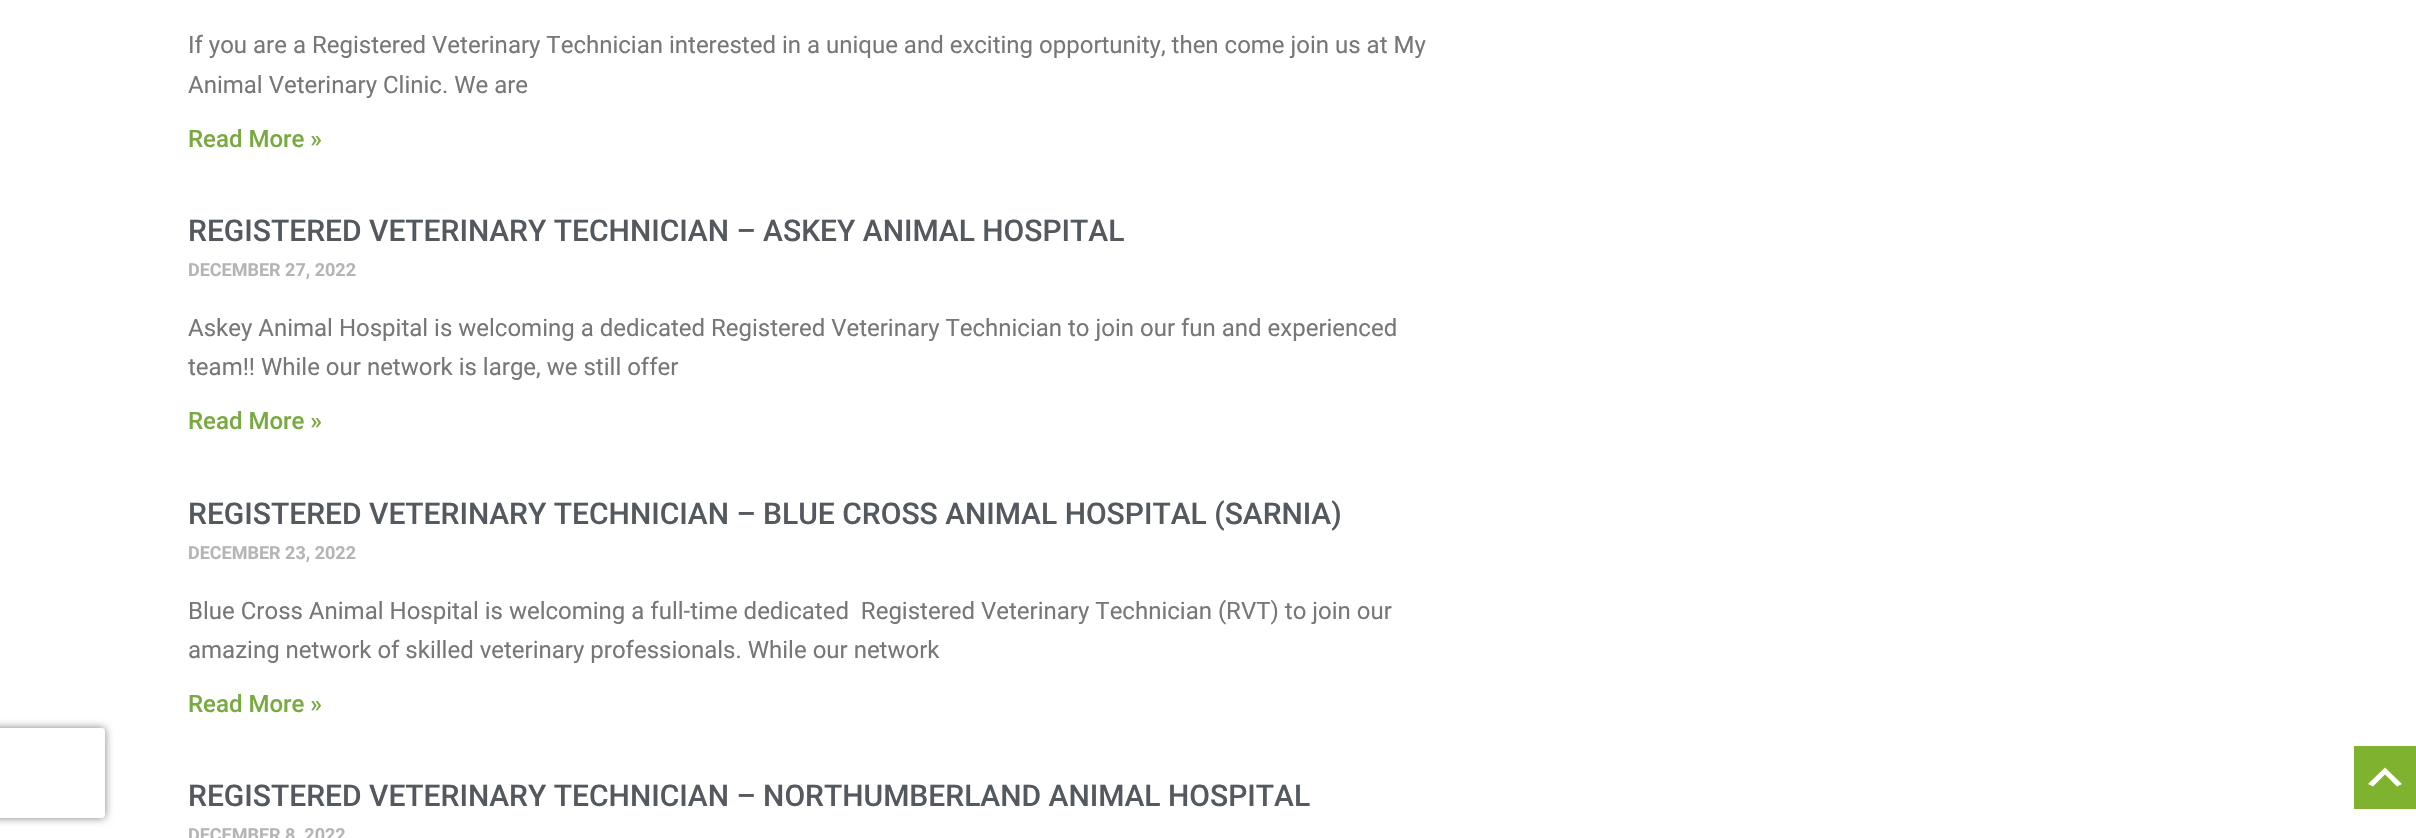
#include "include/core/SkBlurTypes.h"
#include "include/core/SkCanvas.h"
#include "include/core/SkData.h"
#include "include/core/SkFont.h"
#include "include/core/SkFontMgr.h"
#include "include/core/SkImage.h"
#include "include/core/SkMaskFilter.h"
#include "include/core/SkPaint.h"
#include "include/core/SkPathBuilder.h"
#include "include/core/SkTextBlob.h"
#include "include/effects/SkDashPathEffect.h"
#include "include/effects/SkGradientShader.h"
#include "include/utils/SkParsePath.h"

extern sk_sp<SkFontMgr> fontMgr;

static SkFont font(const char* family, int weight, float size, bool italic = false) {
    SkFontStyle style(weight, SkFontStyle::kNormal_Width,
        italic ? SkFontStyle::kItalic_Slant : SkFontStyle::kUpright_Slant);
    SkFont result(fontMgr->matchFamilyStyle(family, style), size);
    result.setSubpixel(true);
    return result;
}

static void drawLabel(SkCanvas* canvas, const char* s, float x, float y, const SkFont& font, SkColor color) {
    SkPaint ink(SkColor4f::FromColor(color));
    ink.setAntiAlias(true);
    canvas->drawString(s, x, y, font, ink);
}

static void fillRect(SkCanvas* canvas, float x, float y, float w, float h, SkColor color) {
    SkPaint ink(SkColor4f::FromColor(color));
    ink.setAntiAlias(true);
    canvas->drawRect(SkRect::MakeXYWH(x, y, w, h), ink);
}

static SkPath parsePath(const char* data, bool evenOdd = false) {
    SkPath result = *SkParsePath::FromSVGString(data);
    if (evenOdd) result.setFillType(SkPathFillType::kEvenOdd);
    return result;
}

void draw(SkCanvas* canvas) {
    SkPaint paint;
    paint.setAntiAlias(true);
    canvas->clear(0xFFFFFFFF);
    canvas->save();
    canvas->clipPath(parsePath("M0 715H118V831H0ZM-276 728H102C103.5 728 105 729.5 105 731V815C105 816.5 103.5 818 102 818H-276C-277.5 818-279 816.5-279 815V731C-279 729.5-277.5 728-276 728Z", true), true);
    paint.setColor(0xFF808080);
    paint.setMaskFilter(SkMaskFilter::MakeBlur(kNormal_SkBlurStyle, 4));
    canvas->drawRoundRect(SkRect::MakeXYWH(-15, 728, 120, 90), 3, 3, paint);
    paint.setMaskFilter(nullptr);
    canvas->restore();
    SkFont font1 = font("Roboto", 400, 24);
    drawLabel(canvas, "If you are a Registered Veterinary Technician interested in a unique and exciting opportunity, then come join us at My", 188, 53, font1, 0xFF777777);
    drawLabel(canvas, "Animal Veterinary Clinic. We are", 188, 93, font1, 0xFF777777);
    SkFont font2 = font("Roboto", 500, 24);
    drawLabel(canvas, "Read More »", 188, 147, font2, 0xFF78AA41);
    SkFont font3 = font("Roboto", 500, 30);
    drawLabel(canvas, "REGISTERED VETERINARY TECHNICIAN – ASKEY ANIMAL HOSPITAL", 188, 241, font3, 0xFF54595F);
    SkFont font4 = font("Roboto", 700, 18);
    drawLabel(canvas, "DECEMBER 27, 2022", 188, 276, font4, 0xFFB5B5B5);
    drawLabel(canvas, "Askey Animal Hospital is welcoming a dedicated Registered Veterinary Technician to join our fun and experienced", 188, 336, font1, 0xFF777777);
    drawLabel(canvas, "team!! While our network is large, we still offer", 188, 375, font1, 0xFF777777);
    drawLabel(canvas, "Read More »", 188, 429, font2, 0xFF78AA41);
    drawLabel(canvas, "REGISTERED VETERINARY TECHNICIAN – BLUE CROSS ANIMAL HOSPITAL (SARNIA)", 188, 524, font3, 0xFF54595F);
    drawLabel(canvas, "DECEMBER 23, 2022", 188, 559, font4, 0xFFB5B5B5);
    drawLabel(canvas, "Blue Cross Animal Hospital is welcoming a full-time dedicated  Registered Veterinary Technician (RVT) to join our", 188, 619, font1, 0xFF777777);
    drawLabel(canvas, "amazing network of skilled veterinary professionals. While our network", 188, 658, font1, 0xFF777777);
    drawLabel(canvas, "Read More »", 188, 712, font2, 0xFF78AA41);
    drawLabel(canvas, "REGISTERED VETERINARY TECHNICIAN – NORTHUMBERLAND ANIMAL HOSPITAL", 188, 806, font3, 0xFF54595F);
    drawLabel(canvas, "DECEMBER 8, 2022", 188, 841, font4, 0xFFB5B5B5);
    fillRect(canvas, 2354, 746, 62, 63, 0xFF7FB22F);
    paint.setColor(0xFFFFFFFF);
    canvas->drawPath(parsePath("M2397 786.5L2385 774.5L2373 786.5L2368 784L2385 767.5L2402 784Z"), paint);
}
